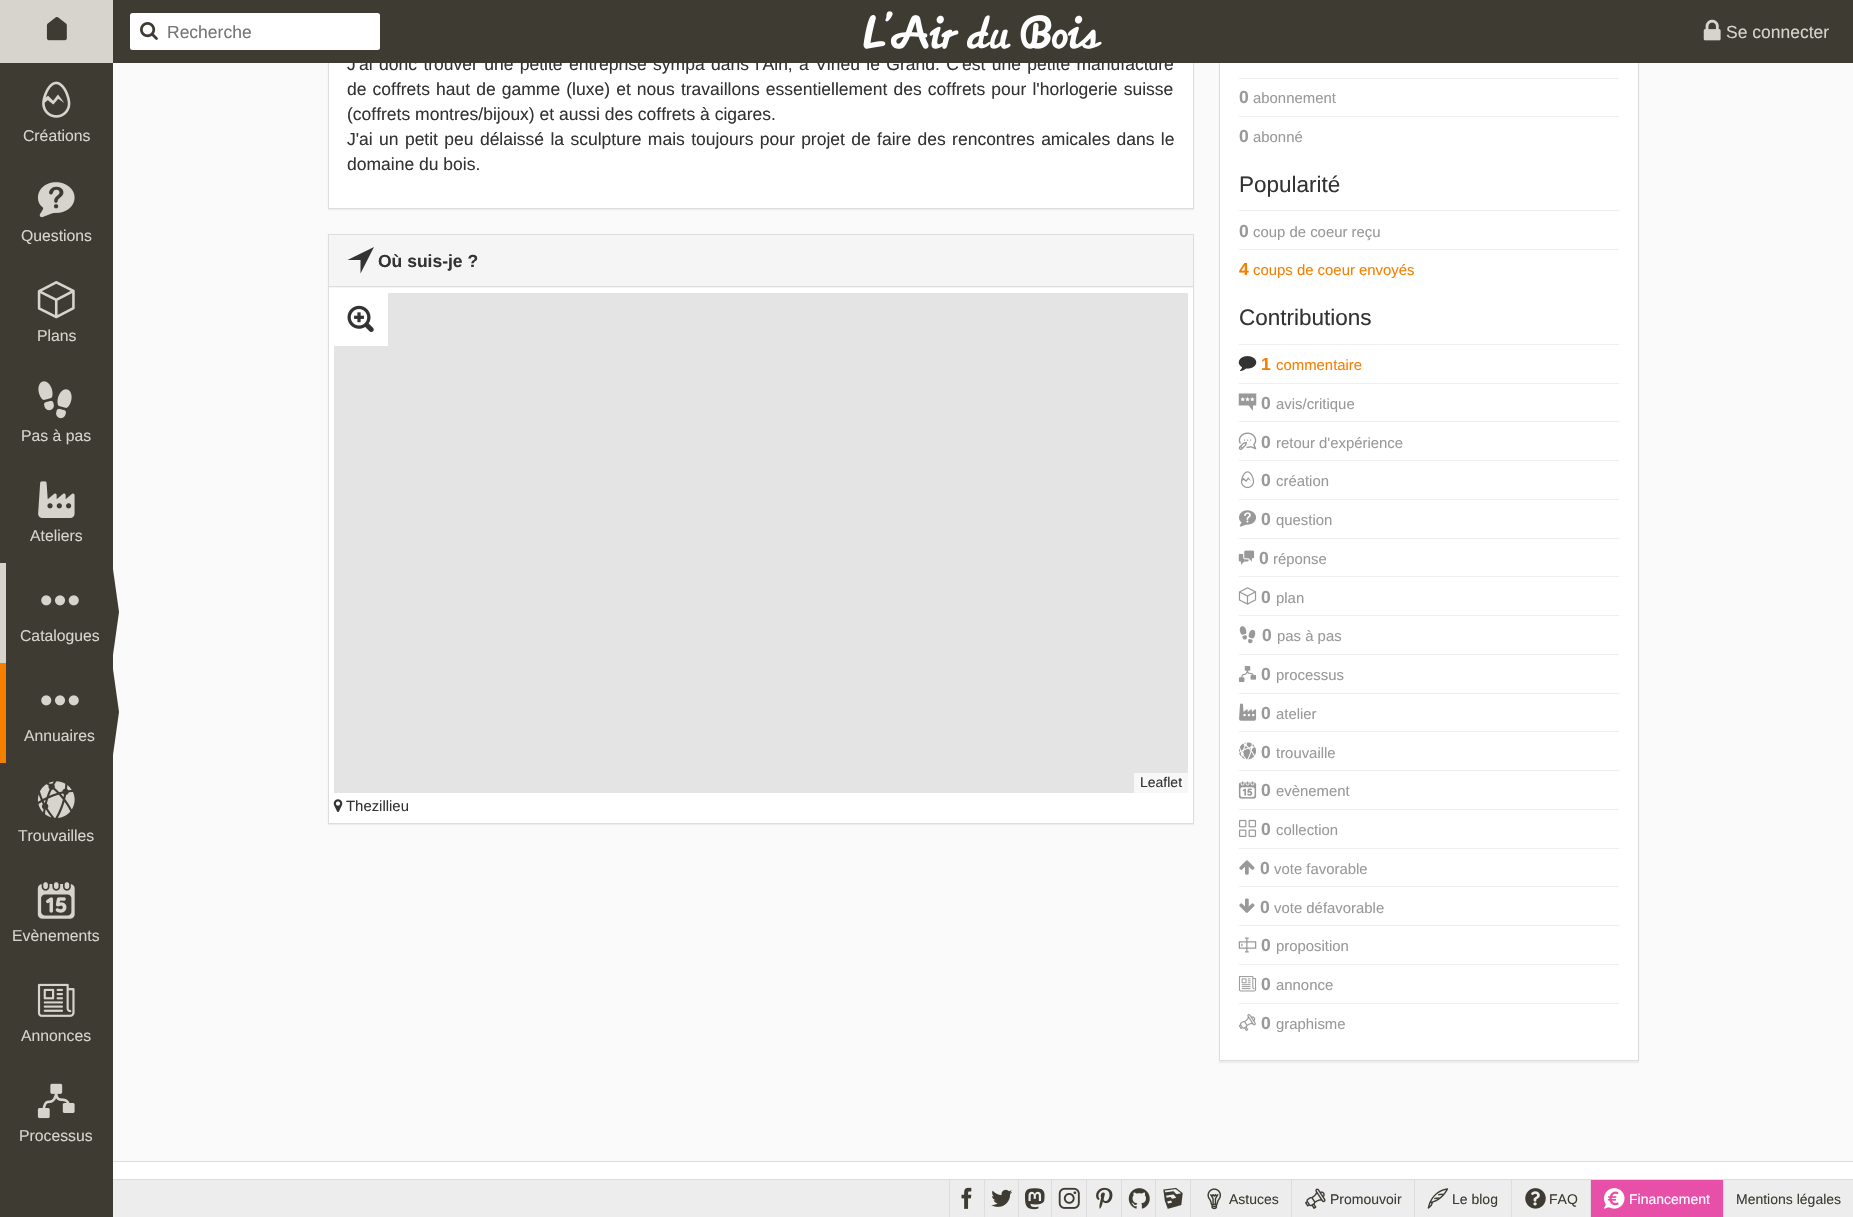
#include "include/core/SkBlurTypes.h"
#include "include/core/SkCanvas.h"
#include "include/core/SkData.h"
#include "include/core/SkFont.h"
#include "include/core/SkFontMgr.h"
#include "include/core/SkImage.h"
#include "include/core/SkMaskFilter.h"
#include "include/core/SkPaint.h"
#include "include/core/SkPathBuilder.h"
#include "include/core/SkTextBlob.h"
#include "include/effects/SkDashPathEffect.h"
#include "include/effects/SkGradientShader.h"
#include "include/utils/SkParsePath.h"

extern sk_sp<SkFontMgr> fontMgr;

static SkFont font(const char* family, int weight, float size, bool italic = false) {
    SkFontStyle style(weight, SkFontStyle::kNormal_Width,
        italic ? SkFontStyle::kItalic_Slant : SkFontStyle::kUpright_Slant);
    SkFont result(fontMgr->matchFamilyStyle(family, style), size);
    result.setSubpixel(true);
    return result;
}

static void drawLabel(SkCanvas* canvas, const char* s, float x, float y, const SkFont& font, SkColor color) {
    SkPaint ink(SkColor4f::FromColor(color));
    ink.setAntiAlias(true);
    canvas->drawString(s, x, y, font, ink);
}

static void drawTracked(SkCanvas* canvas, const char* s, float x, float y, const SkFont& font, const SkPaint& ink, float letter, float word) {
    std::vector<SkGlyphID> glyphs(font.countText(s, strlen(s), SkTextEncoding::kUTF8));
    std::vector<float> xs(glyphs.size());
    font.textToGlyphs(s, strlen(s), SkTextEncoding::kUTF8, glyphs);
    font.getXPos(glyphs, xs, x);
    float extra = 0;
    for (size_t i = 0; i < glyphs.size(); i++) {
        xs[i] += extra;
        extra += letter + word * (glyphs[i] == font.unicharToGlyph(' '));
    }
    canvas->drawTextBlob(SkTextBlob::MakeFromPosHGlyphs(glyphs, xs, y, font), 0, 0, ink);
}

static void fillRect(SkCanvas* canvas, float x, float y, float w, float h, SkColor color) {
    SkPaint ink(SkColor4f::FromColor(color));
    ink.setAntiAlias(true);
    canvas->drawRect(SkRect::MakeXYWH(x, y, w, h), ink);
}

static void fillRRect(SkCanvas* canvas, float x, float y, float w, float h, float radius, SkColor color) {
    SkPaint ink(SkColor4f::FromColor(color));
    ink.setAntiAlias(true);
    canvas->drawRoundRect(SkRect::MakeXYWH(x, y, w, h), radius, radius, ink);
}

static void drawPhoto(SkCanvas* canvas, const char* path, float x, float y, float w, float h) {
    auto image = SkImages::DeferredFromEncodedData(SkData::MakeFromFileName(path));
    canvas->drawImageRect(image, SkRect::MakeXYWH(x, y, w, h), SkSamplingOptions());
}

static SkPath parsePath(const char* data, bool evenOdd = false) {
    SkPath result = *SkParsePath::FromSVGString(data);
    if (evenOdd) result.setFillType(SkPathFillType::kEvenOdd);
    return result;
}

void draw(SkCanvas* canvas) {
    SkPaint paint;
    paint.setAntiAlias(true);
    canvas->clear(0xFFFAFAFA);
    paint.setColor(0x0D000000);
    paint.setMaskFilter(SkMaskFilter::MakeBlur(kNormal_SkBlurStyle, 0.5f));
    canvas->drawRect(SkRect::MakeXYWH(328, -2, 866, 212), paint);
    paint.setMaskFilter(nullptr);
    fillRect(canvas, 329, 63, 864, 145, 0xFFFFFFFF);
    paint.setStroke(true);
    paint.setStrokeWidth(1);
    paint.setColor(0xFFDDDDDD);
    canvas->drawRect(SkRect::MakeXYWH(328.5f, -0.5f, 865, 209), paint);
    SkFont font1 = font("Liberation Sans", 400, 17.5f);
    paint.setStroke(false);
    paint.setColor(0xFF333333);
    drawTracked(canvas, "J'ai donc trouver une petite entreprise sympa dans l'Ain, à Virieu le Grand. C'est une petite manufacture", 347, 70, font1, paint, 0, 1.5f);
    paint.setColor(0x0D000000);
    paint.setMaskFilter(SkMaskFilter::MakeBlur(kNormal_SkBlurStyle, 0.5f));
    canvas->drawRect(SkRect::MakeXYWH(1219, -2, 420, 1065), paint);
    paint.setMaskFilter(nullptr);
    fillRect(canvas, 1220, 63, 418, 997, 0xFFFFFFFF);
    paint.setStroke(true);
    paint.setColor(0xFFDDDDDD);
    canvas->drawRect(SkRect::MakeXYWH(1219.5f, -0.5f, 419, 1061), paint);
    fillRect(canvas, 113, 0, 1740, 63, 0xFF3E3B33);
    fillRect(canvas, 0, 0, 113, 63, 0xFFD6D4CD);
    drawPhoto(canvas, "assets/img1.png", 46, 17, 21, 24);
    fillRRect(canvas, 130, 13, 250, 37, 2.5f, 0xFFFFFFFF);
    drawPhoto(canvas, "assets/img2.png", 140, 22, 18, 18);
    drawLabel(canvas, "Recherche", 167, 38, font1, 0xFF757575);
    drawPhoto(canvas, "assets/img3.png", 863, 11, 239, 38);
    drawPhoto(canvas, "assets/img4.png", 1703, 19, 18, 22);
    drawLabel(canvas, "Se connecter", 1726, 38, font1, 0xFFD6D4CD);
    fillRect(canvas, 0, 63, 113, 1154, 0xFF3E3B33);
    drawPhoto(canvas, "assets/img5.png", 42, 81, 29, 37);
    SkFont font2 = font("Liberation Sans", 400, 15.75f);
    drawLabel(canvas, "Créations", 23, 141, font2, 0xFFD6D4CD);
    drawPhoto(canvas, "assets/img6.png", 37, 182, 38, 36);
    drawLabel(canvas, "Questions", 21, 241, font2, 0xFFD6D4CD);
    drawPhoto(canvas, "assets/img7.png", 37, 281, 38, 38);
    drawLabel(canvas, "Plans", 37, 341, font2, 0xFFD6D4CD);
    drawPhoto(canvas, "assets/img8.png", 38, 381, 34, 38);
    drawLabel(canvas, "Pas à pas", 21, 441, font2, 0xFFD6D4CD);
    drawPhoto(canvas, "assets/img9.png", 38, 481, 37, 37);
    drawLabel(canvas, "Ateliers", 30, 541, font2, 0xFFD6D4CD);
    fillRect(canvas, 0, 563, 6, 100, 0xFFD6D4CD);
    drawPhoto(canvas, "assets/img10.png", 41, 595, 38, 11);
    drawLabel(canvas, "Catalogues", 20, 641, font2, 0xFFD6D4CD);
    paint.setStroke(false);
    paint.setColor(0xFF3E3B33);
    canvas->drawPath(parsePath("M112 662V562L119 612Z"), paint);
    fillRect(canvas, 0, 663, 6, 100, 0xFFF77F00);
    drawPhoto(canvas, "assets/img10.png", 41, 695, 38, 11);
    drawLabel(canvas, "Annuaires", 24, 741, font2, 0xFFD6D4CD);
    canvas->drawPath(parsePath("M112 762V662L119 712Z"), paint);
    drawPhoto(canvas, "assets/img11.png", 37, 781, 38, 37);
    drawLabel(canvas, "Trouvailles", 18, 841, font2, 0xFFD6D4CD);
    drawPhoto(canvas, "assets/img12.png", 37, 882, 38, 37);
    drawLabel(canvas, "Evènements", 12, 941, font2, 0xFFD6D4CD);
    drawPhoto(canvas, "assets/img13.png", 37, 983, 38, 34);
    drawLabel(canvas, "Annonces", 21, 1041, font2, 0xFFD6D4CD);
    drawPhoto(canvas, "assets/img14.png", 37, 1083, 38, 36);
    drawLabel(canvas, "Processus", 19, 1141, font2, 0xFFD6D4CD);
    paint.setColor(0xFF333333);
    drawTracked(canvas, "de coffrets haut de gamme (luxe) et nous travaillons essentiellement des coffrets pour l'horlogerie suisse", 347, 95, font1, paint, 0, 1.25f);
    drawLabel(canvas, "(coffrets montres/bijoux) et aussi des coffrets à cigares.", 347, 120, font1, 0xFF333333);
    drawTracked(canvas, "J'ai un petit peu délaissé la sculpture mais toujours pour projet de faire des rencontres amicales dans le", 347, 145, font1, paint, 0, 1.5f);
    drawLabel(canvas, "domaine du bois.", 347, 170, font1, 0xFF333333);
    paint.setColor(0x0D000000);
    paint.setMaskFilter(SkMaskFilter::MakeBlur(kNormal_SkBlurStyle, 0.5f));
    canvas->drawRect(SkRect::MakeXYWH(328, 235, 866, 590), paint);
    paint.setMaskFilter(nullptr);
    fillRect(canvas, 329, 288, 864, 535, 0xFFFFFFFF);
    paint.setStroke(true);
    paint.setColor(0xFFDDDDDD);
    canvas->drawRect(SkRect::MakeXYWH(328.5f, 234.5f, 865, 589), paint);
    fillRect(canvas, 329, 235, 864, 53, 0xFFF5F5F5);
    fillRect(canvas, 329, 286, 864, 1, 0xFFDDDDDD);
    SkFont font3 = font("Liberation Sans", 700, 17.5f);
    drawLabel(canvas, "Où suis-je ?", 378, 267, font3, 0xFF333333);
    paint.setStroke(false);
    paint.setColor(0xFF333333);
    canvas->drawPath(parsePath("M360.5 273.5V260H347.5L374 247Z"), paint);
    fillRect(canvas, 334, 293, 854, 500, 0xFFE4E4E4);
    fillRect(canvas, 334, 293, 54, 53, 0xFFFFFFFF);
    drawPhoto(canvas, "assets/img15.png", 347, 305, 27, 27);
    fillRect(canvas, 1134, 773, 54, 20, 0xFFF7F7F7);
    SkFont font4 = font("Liberation Sans", 400, 14);
    drawLabel(canvas, "Leaflet", 1140, 787, font4, 0xFF333333);
    drawPhoto(canvas, "assets/img16.png", 333, 799, 10, 13);
    SkFont font5 = font("Liberation Sans", 400, 14.9f);
    drawLabel(canvas, "Thezillieu", 346, 811, font5, 0xFF333333);
    fillRect(canvas, 1239, 78, 380, 1, 0xFFEEEEEE);
    drawLabel(canvas, "0", 1239, 103, font3, 0xFF999999);
    drawLabel(canvas, "abonnement", 1253, 103, font5, 0xFF999999);
    fillRect(canvas, 1239, 116, 380, 1, 0xFFEEEEEE);
    drawLabel(canvas, "0", 1239, 142, font3, 0xFF999999);
    drawLabel(canvas, "abonné", 1253, 142, font5, 0xFF999999);
    SkFont font6 = font("Liberation Sans", 400, 22.5f);
    drawLabel(canvas, "Popularité", 1239, 192, font6, 0xFF333333);
    fillRect(canvas, 1239, 210, 380, 1, 0xFFEEEEEE);
    drawLabel(canvas, "0", 1239, 237, font3, 0xFF999999);
    drawLabel(canvas, "coup de coeur reçu", 1253, 237, font5, 0xFF999999);
    fillRect(canvas, 1239, 249, 380, 1, 0xFFEEEEEE);
    drawLabel(canvas, "4", 1239, 275, font3, 0xFFF77F00);
    drawLabel(canvas, "coups de coeur envoyés", 1253, 275, font5, 0xFFF77F00);
    drawLabel(canvas, "Contributions", 1239, 325, font6, 0xFF333333);
    fillRect(canvas, 1239, 344, 380, 1, 0xFFEEEEEE);
    drawPhoto(canvas, "assets/img17.png", 1238, 356, 19, 16);
    drawLabel(canvas, "1", 1261, 370, font3, 0xFFF77F00);
    drawLabel(canvas, "commentaire", 1276, 370, font5, 0xFFF77F00);
    fillRect(canvas, 1239, 383, 380, 1, 0xFFEEEEEE);
    drawPhoto(canvas, "assets/img18.png", 1238, 393, 19, 18);
    drawLabel(canvas, "0", 1261, 409, font3, 0xFF999999);
    drawLabel(canvas, "avis/critique", 1276, 409, font5, 0xFF999999);
    fillRect(canvas, 1239, 421, 380, 1, 0xFFEEEEEE);
    drawPhoto(canvas, "assets/img19.png", 1238, 432, 19, 18);
    drawLabel(canvas, "0", 1261, 448, font3, 0xFF999999);
    drawLabel(canvas, "retour d'expérience", 1276, 448, font5, 0xFF999999);
    fillRect(canvas, 1239, 460, 380, 1, 0xFFEEEEEE);
    drawPhoto(canvas, "assets/img20.png", 1240, 471, 15, 18);
    drawLabel(canvas, "0", 1261, 486, font3, 0xFF999999);
    drawLabel(canvas, "création", 1276, 486, font5, 0xFF999999);
    fillRect(canvas, 1239, 499, 380, 1, 0xFFEEEEEE);
    drawPhoto(canvas, "assets/img21.png", 1239, 510, 17, 17);
    drawLabel(canvas, "0", 1261, 525, font3, 0xFF999999);
    drawLabel(canvas, "question", 1276, 525, font5, 0xFF999999);
    fillRect(canvas, 1239, 538, 380, 1, 0xFFEEEEEE);
    drawPhoto(canvas, "assets/img22.png", 1238, 550, 17, 15);
    drawLabel(canvas, "0", 1259, 564, font3, 0xFF999999);
    drawLabel(canvas, "réponse", 1273, 564, font5, 0xFF999999);
    fillRect(canvas, 1239, 576, 380, 1, 0xFFEEEEEE);
    drawPhoto(canvas, "assets/img23.png", 1238, 587, 19, 18);
    drawLabel(canvas, "0", 1261, 603, font3, 0xFF999999);
    drawLabel(canvas, "plan", 1276, 603, font5, 0xFF999999);
    fillRect(canvas, 1239, 615, 380, 1, 0xFFEEEEEE);
    drawPhoto(canvas, "assets/img24.png", 1239, 626, 17, 18);
    drawLabel(canvas, "0", 1262, 641, font3, 0xFF999999);
    drawLabel(canvas, "pas à pas", 1277, 641, font5, 0xFF999999);
    fillRect(canvas, 1239, 654, 380, 1, 0xFFEEEEEE);
    drawPhoto(canvas, "assets/img25.png", 1238, 666, 19, 16);
    drawLabel(canvas, "0", 1261, 680, font3, 0xFF999999);
    drawLabel(canvas, "processus", 1276, 680, font5, 0xFF999999);
    fillRect(canvas, 1239, 693, 380, 1, 0xFFEEEEEE);
    drawPhoto(canvas, "assets/img26.png", 1239, 703, 18, 18);
    drawLabel(canvas, "0", 1261, 719, font3, 0xFF999999);
    drawLabel(canvas, "atelier", 1276, 719, font5, 0xFF999999);
    fillRect(canvas, 1239, 731, 380, 1, 0xFFEEEEEE);
    drawPhoto(canvas, "assets/img27.png", 1239, 742, 17, 18);
    drawLabel(canvas, "0", 1261, 758, font3, 0xFF999999);
    drawLabel(canvas, "trouvaille", 1276, 758, font5, 0xFF999999);
    fillRect(canvas, 1239, 770, 380, 1, 0xFFEEEEEE);
    drawPhoto(canvas, "assets/img28.png", 1238, 781, 19, 18);
    drawLabel(canvas, "0", 1261, 796, font3, 0xFF999999);
    drawLabel(canvas, "evènement", 1276, 796, font5, 0xFF999999);
    fillRect(canvas, 1239, 809, 380, 1, 0xFFEEEEEE);
    drawPhoto(canvas, "assets/img29.png", 1238, 819, 19, 18);
    drawLabel(canvas, "0", 1261, 835, font3, 0xFF999999);
    drawLabel(canvas, "collection", 1276, 835, font5, 0xFF999999);
    fillRect(canvas, 1239, 848, 380, 1, 0xFFEEEEEE);
    drawPhoto(canvas, "assets/img30.png", 1239, 860, 16, 15);
    drawLabel(canvas, "0", 1260, 874, font3, 0xFF999999);
    drawLabel(canvas, "vote favorable", 1274, 874, font5, 0xFF999999);
    fillRect(canvas, 1239, 886, 380, 1, 0xFFEEEEEE);
    drawPhoto(canvas, "assets/img31.png", 1239, 898, 16, 15);
    drawLabel(canvas, "0", 1260, 913, font3, 0xFF999999);
    drawLabel(canvas, "vote défavorable", 1274, 913, font5, 0xFF999999);
    fillRect(canvas, 1239, 925, 380, 1, 0xFFEEEEEE);
    drawPhoto(canvas, "assets/img32.png", 1238, 937, 19, 16);
    drawLabel(canvas, "0", 1261, 951, font3, 0xFF999999);
    drawLabel(canvas, "proposition", 1276, 951, font5, 0xFF999999);
    fillRect(canvas, 1239, 964, 380, 1, 0xFFEEEEEE);
    drawPhoto(canvas, "assets/img33.png", 1238, 976, 19, 16);
    drawLabel(canvas, "0", 1261, 990, font3, 0xFF999999);
    drawLabel(canvas, "annonce", 1276, 990, font5, 0xFF999999);
    fillRect(canvas, 1239, 1003, 380, 1, 0xFFEEEEEE);
    drawPhoto(canvas, "assets/img34.png", 1238, 1014, 18, 17);
    drawLabel(canvas, "0", 1261, 1029, font3, 0xFF999999);
    drawLabel(canvas, "graphisme", 1276, 1029, font5, 0xFF999999);
    fillRect(canvas, 113, 1162, 1740, 17, 0xFFFFFFFF);
    fillRect(canvas, 113, 1161, 1740, 1, 0xFFDDDDDD);
    fillRect(canvas, 113, 1180, 1740, 37, 0xFFEDEDED);
    fillRect(canvas, 113, 1179, 1740, 1, 0xFFDDDDDD);
    fillRect(canvas, 949, 1180, 1, 37, 0xFFDDDDDD);
    drawPhoto(canvas, "assets/img35.png", 961, 1187, 11, 22);
    fillRect(canvas, 984, 1180, 1, 37, 0xFFDDDDDD);
    drawPhoto(canvas, "assets/img36.png", 991, 1189, 21, 18);
    fillRect(canvas, 1018, 1180, 1, 37, 0xFFDDDDDD);
    drawPhoto(canvas, "assets/img37.png", 1025, 1188, 20, 22);
    fillRect(canvas, 1051, 1180, 1, 37, 0xFFDDDDDD);
    drawPhoto(canvas, "assets/img38.png", 1058, 1187, 22, 22);
    fillRect(canvas, 1086, 1180, 1, 37, 0xFFDDDDDD);
    drawPhoto(canvas, "assets/img39.png", 1096, 1187, 17, 22);
    fillRect(canvas, 1121, 1180, 1, 37, 0xFFDDDDDD);
    drawPhoto(canvas, "assets/img40.png", 1128, 1188, 22, 21);
    fillRect(canvas, 1155, 1180, 1, 37, 0xFFDDDDDD);
    drawPhoto(canvas, "assets/img41.png", 1163, 1187, 20, 22);
    fillRect(canvas, 1190, 1180, 1, 37, 0xFFDDDDDD);
    drawPhoto(canvas, "assets/img42.png", 1207, 1188, 14, 22);
    drawLabel(canvas, "Astuces", 1229, 1204, font4, 0xFF3E3B33);
    fillRect(canvas, 1291, 1180, 1, 37, 0xFFDDDDDD);
    drawPhoto(canvas, "assets/img43.png", 1305, 1188, 21, 21);
    drawLabel(canvas, "Promouvoir", 1330, 1204, font4, 0xFF3E3B33);
    fillRect(canvas, 1414, 1180, 1, 37, 0xFFDDDDDD);
    drawPhoto(canvas, "assets/img44.png", 1427, 1188, 22, 21);
    drawLabel(canvas, "Le blog", 1452, 1204, font4, 0xFF3E3B33);
    fillRect(canvas, 1511, 1180, 1, 37, 0xFFDDDDDD);
    drawPhoto(canvas, "assets/img45.png", 1525, 1188, 21, 21);
    drawLabel(canvas, "FAQ", 1549, 1204, font4, 0xFF3E3B33);
    fillRect(canvas, 1591, 1180, 132, 37, 0xFFE84FA9);
    fillRect(canvas, 1590, 1180, 1, 37, 0xFFDDDDDD);
    drawPhoto(canvas, "assets/img46.png", 1604, 1188, 21, 21);
    drawLabel(canvas, "Financement", 1629, 1204, font4, 0xFFFFFFFF);
    fillRect(canvas, 1723, 1180, 1, 37, 0xFFDDDDDD);
    drawLabel(canvas, "Mentions légales", 1736, 1204, font4, 0xFF3E3B33);
}
